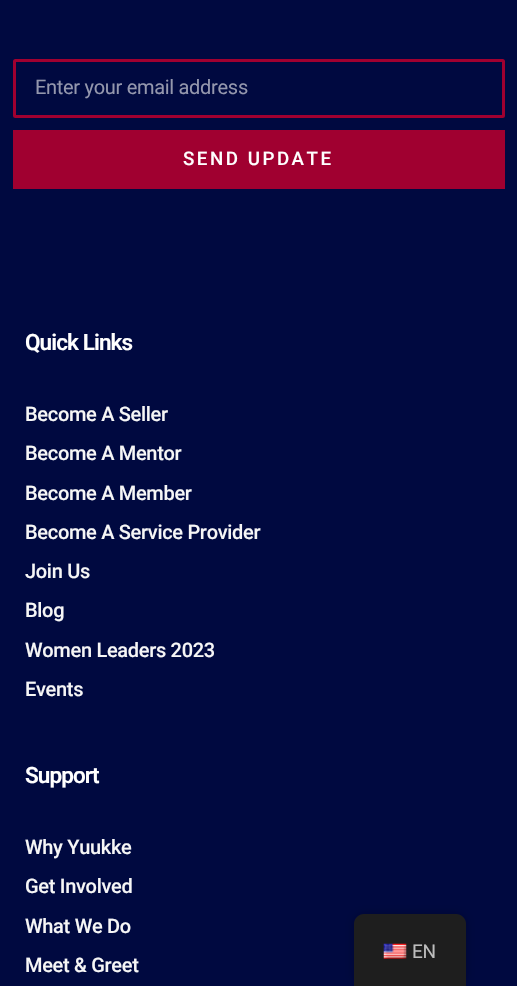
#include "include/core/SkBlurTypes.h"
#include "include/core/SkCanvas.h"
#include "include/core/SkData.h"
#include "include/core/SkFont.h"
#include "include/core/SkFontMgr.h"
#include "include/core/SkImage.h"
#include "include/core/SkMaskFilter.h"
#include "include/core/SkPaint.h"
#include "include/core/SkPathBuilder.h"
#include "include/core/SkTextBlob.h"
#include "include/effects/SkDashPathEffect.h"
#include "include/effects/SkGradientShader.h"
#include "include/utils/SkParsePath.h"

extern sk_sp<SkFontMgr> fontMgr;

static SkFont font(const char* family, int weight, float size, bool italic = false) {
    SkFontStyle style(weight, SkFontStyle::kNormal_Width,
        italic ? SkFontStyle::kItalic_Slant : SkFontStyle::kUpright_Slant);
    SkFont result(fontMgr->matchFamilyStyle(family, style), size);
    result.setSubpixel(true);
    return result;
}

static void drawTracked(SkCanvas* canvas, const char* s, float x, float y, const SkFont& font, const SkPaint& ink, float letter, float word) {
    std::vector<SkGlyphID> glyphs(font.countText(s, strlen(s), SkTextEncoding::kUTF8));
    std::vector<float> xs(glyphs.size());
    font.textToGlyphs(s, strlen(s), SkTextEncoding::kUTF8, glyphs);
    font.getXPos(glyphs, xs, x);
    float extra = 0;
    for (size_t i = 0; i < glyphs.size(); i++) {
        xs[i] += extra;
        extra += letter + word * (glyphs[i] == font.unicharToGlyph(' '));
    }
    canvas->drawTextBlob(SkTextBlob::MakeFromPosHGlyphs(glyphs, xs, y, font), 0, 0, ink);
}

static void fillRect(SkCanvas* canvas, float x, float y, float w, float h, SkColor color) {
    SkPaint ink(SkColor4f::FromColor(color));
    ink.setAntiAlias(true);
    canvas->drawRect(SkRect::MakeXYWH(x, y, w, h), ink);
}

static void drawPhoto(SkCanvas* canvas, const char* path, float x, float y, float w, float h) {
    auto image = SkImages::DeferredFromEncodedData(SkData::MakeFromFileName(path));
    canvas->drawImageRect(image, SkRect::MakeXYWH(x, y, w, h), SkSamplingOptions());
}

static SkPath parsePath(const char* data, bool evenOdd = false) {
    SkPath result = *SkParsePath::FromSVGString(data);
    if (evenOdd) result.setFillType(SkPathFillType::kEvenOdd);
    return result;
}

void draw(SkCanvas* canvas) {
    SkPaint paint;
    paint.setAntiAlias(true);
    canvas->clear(0xFF000940);
    paint.setStroke(true);
    paint.setStrokeWidth(3);
    paint.setColor(0xFFA00030);
    canvas->drawRoundRect(SkRect::MakeXYWH(14.5f, 60.5f, 489, 56), 1, 1, paint);
    SkFont font1 = font("Roboto", 400, 20);
    paint.setStroke(false);
    paint.setColor(0xFF9497AD);
    drawTracked(canvas, "Enter your email address", 35, 94, font1, paint, -0.3f, 0);
    fillRect(canvas, 13, 130, 492, 59, 0xFFA00030);
    SkFont font2 = font("Roboto", 500, 18.75f);
    paint.setColor(0xFFFFFFFF);
    drawTracked(canvas, "SEND UPDATE", 183, 165, font2, paint, 2.5f, 0);
    SkFont font3 = font("Roboto", 600, 22.5f);
    drawTracked(canvas, "Quick Links", 25, 350, font3, paint, -0.9f, 0);
    SkFont font4 = font("Roboto", 500, 20);
    paint.setColor(0xFFF6F6F6);
    drawTracked(canvas, "Become A Seller", 25, 421, font4, paint, -0.3f, 0);
    drawTracked(canvas, "Become A Mentor", 25, 460, font4, paint, -0.3f, 0);
    drawTracked(canvas, "Become A Member", 25, 500, font4, paint, -0.3f, 0);
    drawTracked(canvas, "Become A Service Provider", 25, 539, font4, paint, -0.3f, 0);
    drawTracked(canvas, "Join Us", 25, 578, font4, paint, -0.3f, 0);
    drawTracked(canvas, "Blog", 25, 617, font4, paint, -0.3f, 0);
    drawTracked(canvas, "Women Leaders 2023", 25, 657, font4, paint, -0.3f, 0);
    drawTracked(canvas, "Events", 25, 696, font4, paint, -0.3f, 0);
    paint.setColor(0xFFFFFFFF);
    drawTracked(canvas, "Support", 25, 783, font3, paint, -0.9f, 0);
    paint.setColor(0xFFF6F6F6);
    drawTracked(canvas, "Why Yuukke", 25, 854, font4, paint, -0.3f, 0);
    drawTracked(canvas, "Get Involved", 25, 893, font4, paint, -0.3f, 0);
    drawTracked(canvas, "What We Do", 25, 933, font4, paint, -0.3f, 0);
    drawTracked(canvas, "Meet & Greet", 25, 972, font4, paint, -0.3f, 0);
    paint.setColor(0x40000000);
    paint.setMaskFilter(SkMaskFilter::MakeBlur(kNormal_SkBlurStyle, 5));
    canvas->drawRoundRect(SkRect::MakeXYWH(354, 914, 112, 72), 10, 10, paint);
    paint.setMaskFilter(nullptr);
    paint.setColor(0xFF1E1E1E);
    canvas->drawPath(parsePath("M364 914H456C461.5 914 466 918.5 466 924V986H354V924C354 918.5 358.5 914 364 914Z"), paint);
    drawPhoto(canvas, "assets/img1.png", 383, 943, 24, 16);
    SkFont font5 = font("Roboto", 400, 19);
    paint.setColor(0xFFBDBDBD);
    drawTracked(canvas, "EN", 412, 958, font5, paint, -0.3f, 0);
}
